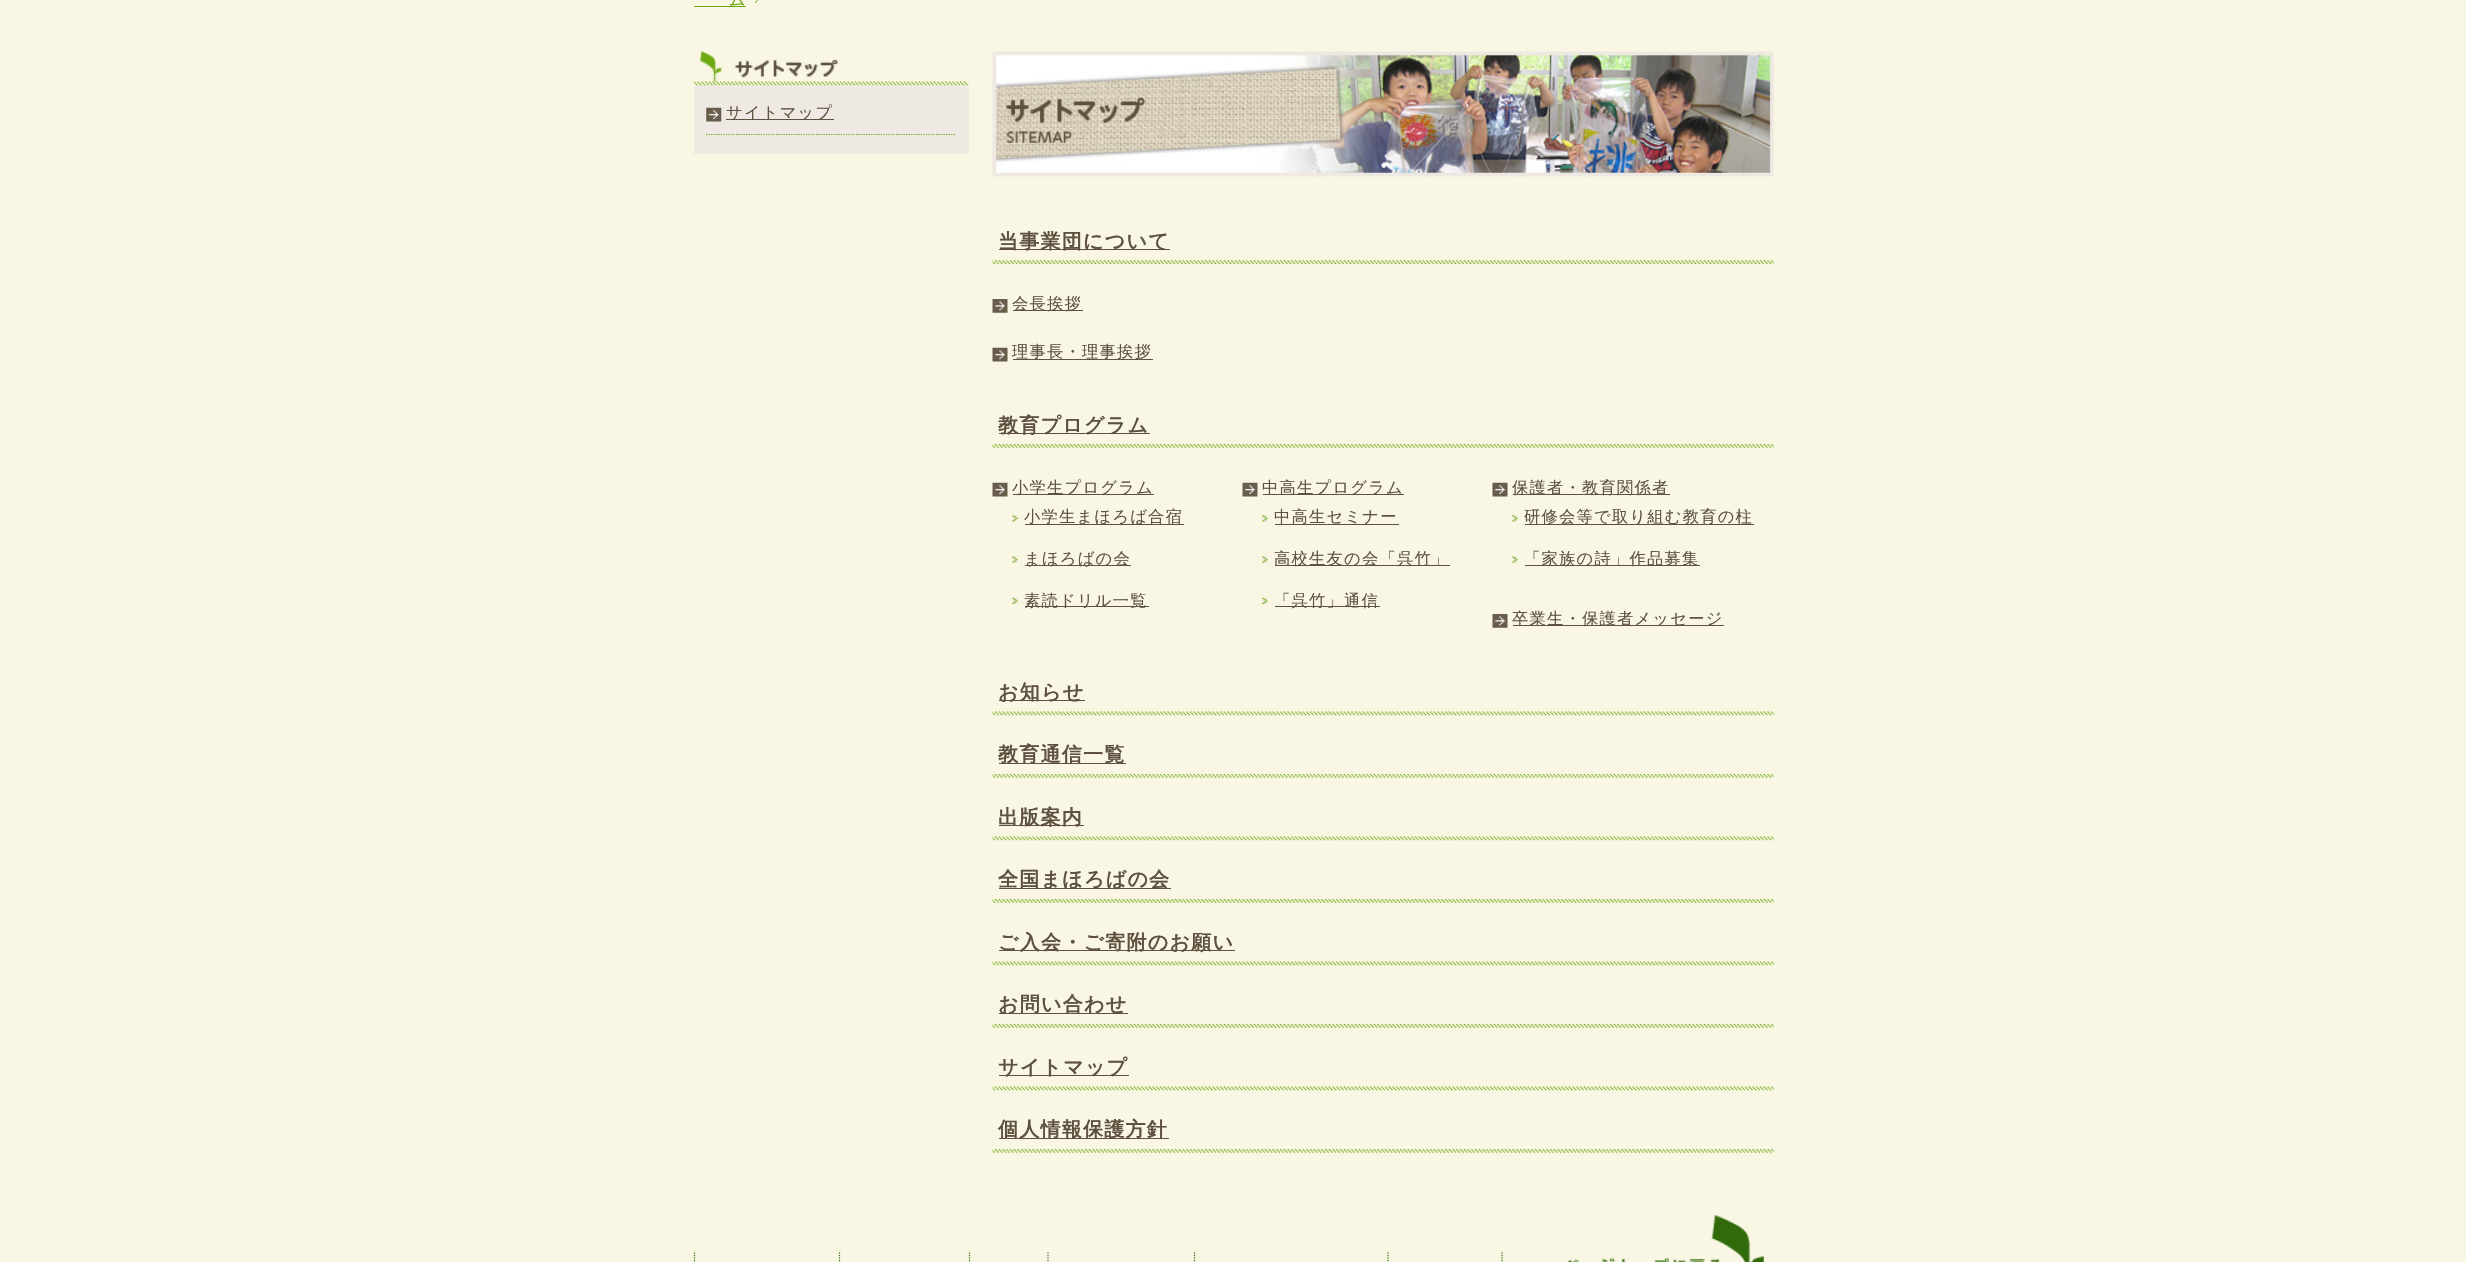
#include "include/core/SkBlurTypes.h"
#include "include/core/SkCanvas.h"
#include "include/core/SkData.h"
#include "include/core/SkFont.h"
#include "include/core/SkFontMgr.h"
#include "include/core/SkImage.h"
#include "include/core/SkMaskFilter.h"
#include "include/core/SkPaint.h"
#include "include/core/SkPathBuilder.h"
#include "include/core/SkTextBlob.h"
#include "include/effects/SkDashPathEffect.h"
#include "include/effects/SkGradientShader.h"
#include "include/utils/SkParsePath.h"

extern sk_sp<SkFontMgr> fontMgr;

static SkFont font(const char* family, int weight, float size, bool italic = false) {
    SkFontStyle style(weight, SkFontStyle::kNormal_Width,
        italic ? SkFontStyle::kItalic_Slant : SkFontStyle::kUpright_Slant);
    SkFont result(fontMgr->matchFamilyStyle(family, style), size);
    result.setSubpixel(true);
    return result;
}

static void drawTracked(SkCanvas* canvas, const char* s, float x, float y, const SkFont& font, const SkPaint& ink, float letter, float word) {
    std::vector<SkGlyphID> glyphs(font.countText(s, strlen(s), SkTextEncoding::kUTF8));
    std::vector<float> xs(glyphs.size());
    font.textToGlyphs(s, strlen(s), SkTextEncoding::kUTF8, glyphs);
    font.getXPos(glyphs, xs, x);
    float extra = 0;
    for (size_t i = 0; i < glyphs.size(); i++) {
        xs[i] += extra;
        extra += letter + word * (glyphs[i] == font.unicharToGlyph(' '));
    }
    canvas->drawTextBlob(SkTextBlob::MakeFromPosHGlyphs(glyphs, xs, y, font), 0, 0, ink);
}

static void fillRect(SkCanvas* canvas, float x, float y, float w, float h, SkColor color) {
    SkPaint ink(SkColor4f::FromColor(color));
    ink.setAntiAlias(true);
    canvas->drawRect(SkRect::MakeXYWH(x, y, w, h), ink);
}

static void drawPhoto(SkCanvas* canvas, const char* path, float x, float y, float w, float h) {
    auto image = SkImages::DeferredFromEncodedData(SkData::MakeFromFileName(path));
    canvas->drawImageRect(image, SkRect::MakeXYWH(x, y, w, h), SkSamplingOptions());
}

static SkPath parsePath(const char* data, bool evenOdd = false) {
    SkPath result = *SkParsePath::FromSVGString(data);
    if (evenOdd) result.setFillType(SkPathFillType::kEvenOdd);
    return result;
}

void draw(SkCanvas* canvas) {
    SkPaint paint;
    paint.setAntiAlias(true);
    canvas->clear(0xFFF9F7E3);
    SkFont font1 = font("WenQuanYi Zen Hei", 500, 16.25f);
    paint.setColor(0xFF6DA80E);
    drawTracked(canvas, "ム", 729, 5, font1, paint, 1.25f, 0);
    fillRect(canvas, 694, 6, 52, 1, 0xFF6DA80E);
    drawPhoto(canvas, "assets/img1.png", 755, 0, 4, 3);
    fillRect(canvas, 694, 85, 275, 69, 0xFFEEE9E2);
    drawPhoto(canvas, "assets/img2.png", 693, 51, 276, 35);
    drawPhoto(canvas, "assets/img3.png", 706, 107, 16, 15);
    paint.setStroke(true);
    paint.setStrokeWidth(1.2f);
    paint.setPathEffect(SkDashPathEffect::Make({{1.25f, 1.25f}}, 0));
    canvas->drawPath(parsePath("M706 134.5H956"), paint);
    paint.setPathEffect(nullptr);
    fillRect(canvas, 726, 119, 108, 1, 0xFF5E5140);
    paint.setStroke(false);
    paint.setColor(0xFF5E5140);
    drawTracked(canvas, "サイトマップ", 726, 118, font1, paint, 1.25f, 0);
    drawPhoto(canvas, "assets/img4.png", 992, 51, 782, 126);
    drawPhoto(canvas, "assets/img5.png", 992, 260, 782, 4);
    fillRect(canvas, 999, 249, 171, 1, 0xFF5E5140);
    SkFont font2 = font("WenQuanYi Zen Hei", 700, 20);
    drawTracked(canvas, "当事業団について", 998, 248, font2, paint, 1.25f, 0);
    drawPhoto(canvas, "assets/img6.png", 992, 299, 16, 14);
    fillRect(canvas, 1013, 310, 70, 1, 0xFF5E5140);
    drawTracked(canvas, "会長挨拶", 1012, 309, font1, paint, 1.25f, 0);
    drawPhoto(canvas, "assets/img7.png", 992, 347, 16, 15);
    fillRect(canvas, 1013, 359, 140, 1, 0xFF5E5140);
    drawTracked(canvas, "理事長・理事挨拶", 1012, 357, font1, paint, 1.25f, 0);
    drawPhoto(canvas, "assets/img8.png", 992, 444, 782, 4);
    fillRect(canvas, 999, 433, 151, 1, 0xFF5E5140);
    drawTracked(canvas, "教育プログラム", 998, 432, font2, paint, 1.25f, 0);
    drawPhoto(canvas, "assets/img7.png", 992, 482, 16, 15);
    fillRect(canvas, 1013, 494, 141, 1, 0xFF5E5140);
    drawTracked(canvas, "小学生プログラム", 1012, 493, font1, paint, 1.25f, 0);
    drawPhoto(canvas, "assets/img9.png", 1012, 515, 6, 7);
    fillRect(canvas, 1025, 524, 159, 1, 0xFF5E5140);
    drawTracked(canvas, "小学生まほろば合宿", 1024, 522, font1, paint, 1.25f, 0);
    drawPhoto(canvas, "assets/img10.png", 1012, 556, 6, 7);
    fillRect(canvas, 1025, 565, 106, 1, 0xFF5E5140);
    drawTracked(canvas, "まほろばの会", 1024, 564, font1, paint, 1.25f, 0);
    drawPhoto(canvas, "assets/img11.png", 1012, 597, 6, 7);
    fillRect(canvas, 1025, 606, 124, 1, 0xFF5E5140);
    drawTracked(canvas, "素読ドリル一覧", 1024, 606, font1, paint, 1.25f, 0);
    drawPhoto(canvas, "assets/img7.png", 1242, 482, 16, 15);
    fillRect(canvas, 1263, 494, 141, 1, 0xFF5E5140);
    drawTracked(canvas, "中高生プログラム", 1262, 493, font1, paint, 1.25f, 0);
    drawPhoto(canvas, "assets/img9.png", 1262, 515, 6, 7);
    fillRect(canvas, 1275, 524, 124, 1, 0xFF5E5140);
    drawTracked(canvas, "中高生セミナー", 1274, 522, font1, paint, 1.25f, 0);
    drawPhoto(canvas, "assets/img10.png", 1262, 556, 6, 7);
    fillRect(canvas, 1275, 565, 175, 1, 0xFF5E5140);
    drawTracked(canvas, "高校生友の会「呉竹」", 1274, 564, font1, paint, 1.25f, 0);
    drawPhoto(canvas, "assets/img11.png", 1262, 597, 6, 7);
    fillRect(canvas, 1275, 606, 105, 1, 0xFF5E5140);
    drawTracked(canvas, "「呉竹」通信", 1274, 606, font1, paint, 1.25f, 0);
    drawPhoto(canvas, "assets/img7.png", 1492, 482, 16, 15);
    fillRect(canvas, 1513, 494, 157, 1, 0xFF5E5140);
    drawTracked(canvas, "保護者・教育関係者", 1512, 493, font1, paint, 1.25f, 0);
    drawPhoto(canvas, "assets/img9.png", 1512, 515, 6, 7);
    fillRect(canvas, 1525, 524, 229, 1, 0xFF5E5140);
    drawTracked(canvas, "研修会等で取り組む教育の柱", 1524, 522, font1, paint, 1.25f, 0);
    drawPhoto(canvas, "assets/img10.png", 1512, 556, 6, 7);
    fillRect(canvas, 1525, 565, 175, 1, 0xFF5E5140);
    drawTracked(canvas, "「家族の詩」作品募集", 1524, 564, font1, paint, 1.25f, 0);
    drawPhoto(canvas, "assets/img6.png", 1492, 614, 16, 14);
    fillRect(canvas, 1513, 625, 211, 1, 0xFF5E5140);
    drawTracked(canvas, "卒業生・保護者メッセージ", 1512, 624, font1, paint, 1.25f, 0);
    drawPhoto(canvas, "assets/img12.png", 992, 711, 782, 5);
    fillRect(canvas, 999, 700, 86, 1, 0xFF5E5140);
    drawTracked(canvas, "お知らせ", 998, 699, font2, paint, 1.25f, 0);
    drawPhoto(canvas, "assets/img13.png", 992, 774, 782, 4);
    fillRect(canvas, 999, 763, 127, 1, 0xFF5E5140);
    drawTracked(canvas, "教育通信一覧", 998, 761, font2, paint, 1.25f, 0);
    drawPhoto(canvas, "assets/img14.png", 992, 836, 782, 5);
    fillRect(canvas, 999, 825, 85, 1, 0xFF5E5140);
    drawTracked(canvas, "出版案内", 998, 824, font2, paint, 1.25f, 0);
    drawPhoto(canvas, "assets/img15.png", 992, 899, 782, 4);
    fillRect(canvas, 999, 888, 172, 1, 0xFF5E5140);
    drawTracked(canvas, "全国まほろばの会", 998, 886, font2, paint, 1.25f, 0);
    drawPhoto(canvas, "assets/img16.png", 992, 961, 782, 5);
    fillRect(canvas, 999, 950, 236, 1, 0xFF5E5140);
    drawTracked(canvas, "ご入会・ご寄附のお願い", 998, 949, font2, paint, 1.25f, 0);
    drawPhoto(canvas, "assets/img13.png", 992, 1024, 782, 4);
    fillRect(canvas, 999, 1013, 129, 1, 0xFF5E5140);
    drawTracked(canvas, "お問い合わせ", 998, 1011, font2, paint, 1.25f, 0);
    drawPhoto(canvas, "assets/img17.png", 992, 1086, 782, 5);
    fillRect(canvas, 999, 1075, 130, 1, 0xFF5E5140);
    drawTracked(canvas, "サイトマップ", 998, 1074, font2, paint, 1.25f, 0);
    drawPhoto(canvas, "assets/img18.png", 992, 1149, 782, 4);
    fillRect(canvas, 999, 1138, 170, 1, 0xFF5E5140);
    drawTracked(canvas, "個人情報保護方針", 998, 1136, font2, paint, 1.25f, 0);
    paint.setStroke(true);
    paint.setColor(0xFF306A0A);
    paint.setPathEffect(SkDashPathEffect::Make({{1.25f, 1.25f}}, 0));
    canvas->drawPath(parsePath("M839.5 1252.5V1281"), paint);
    paint.setPathEffect(nullptr);
    paint.setColor(0xFF2E6A08);
    paint.setPathEffect(SkDashPathEffect::Make({{1.25f, 1.25f}}, 0));
    canvas->drawPath(parsePath("M694.5 1252.5V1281"), paint);
    paint.setPathEffect(nullptr);
    paint.setColor(0xFF306A0A);
    paint.setPathEffect(SkDashPathEffect::Make({{1.25f, 1.25f}}, 0));
    canvas->drawPath(parsePath("M969.5 1252.5V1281"), paint);
    paint.setPathEffect(nullptr);
    paint.setPathEffect(SkDashPathEffect::Make({{1.25f, 1.25f}}, 0));
    canvas->drawPath(parsePath("M1048 1252.5V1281"), paint);
    paint.setPathEffect(nullptr);
    paint.setPathEffect(SkDashPathEffect::Make({{1.25f, 1.25f}}, 0));
    canvas->drawPath(parsePath("M1194.5 1252.5V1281"), paint);
    paint.setPathEffect(nullptr);
    paint.setPathEffect(SkDashPathEffect::Make({{1.25f, 1.25f}}, 0));
    canvas->drawPath(parsePath("M1388 1252.5V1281"), paint);
    paint.setPathEffect(nullptr);
    paint.setPathEffect(SkDashPathEffect::Make({{1.25f, 1.25f}}, 0));
    canvas->drawPath(parsePath("M1502 1252.5V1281"), paint);
    paint.setPathEffect(nullptr);
    drawPhoto(canvas, "assets/img19.png", 1567, 1215, 197, 47);
}
